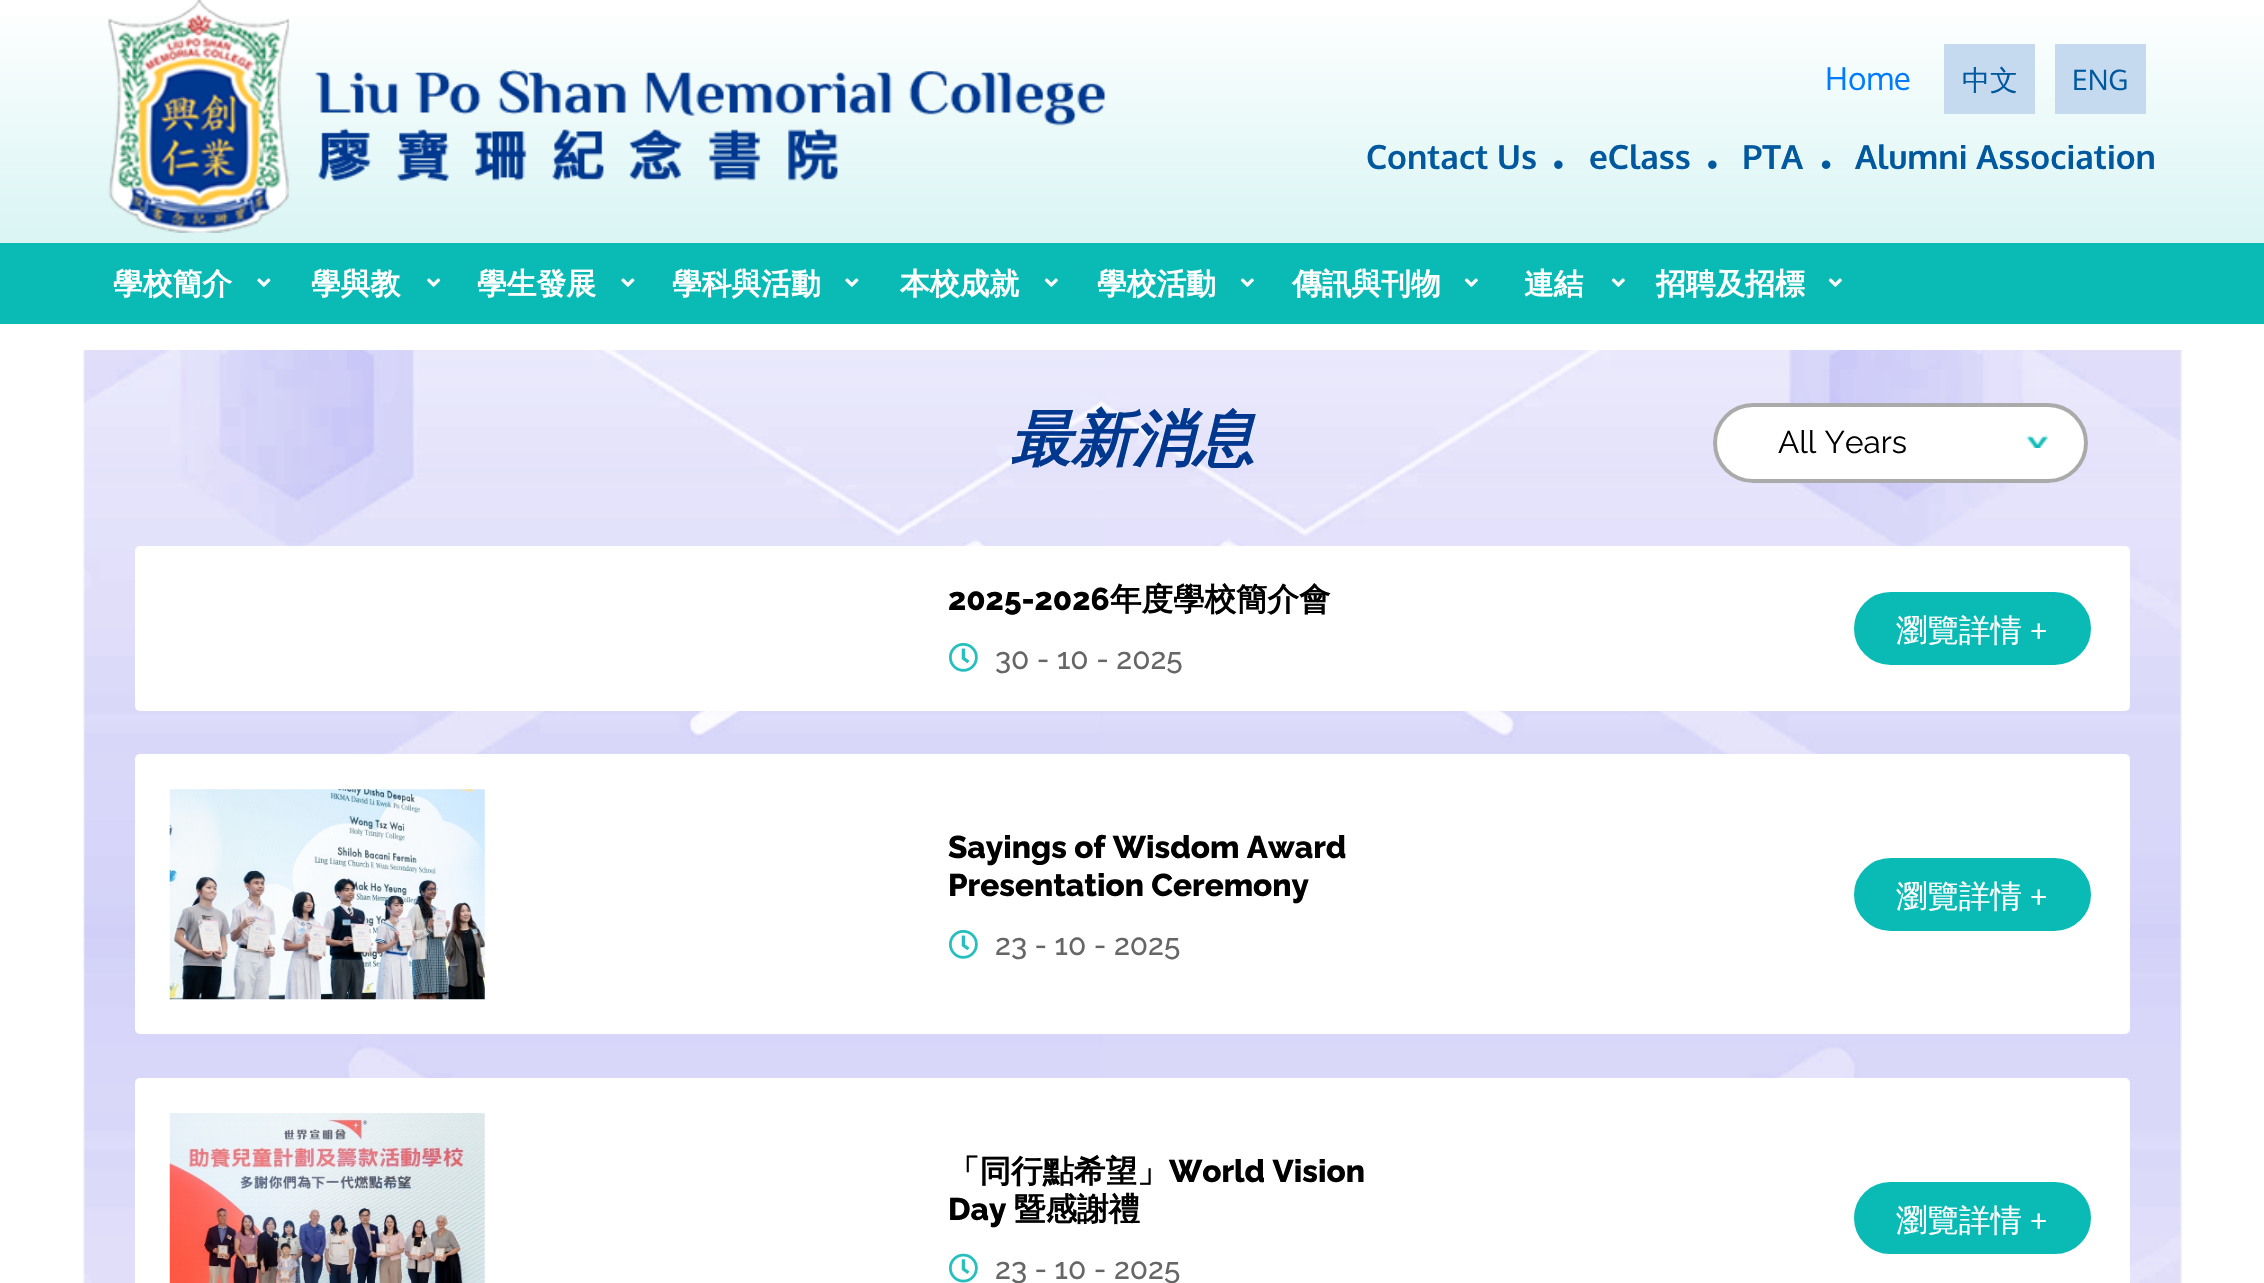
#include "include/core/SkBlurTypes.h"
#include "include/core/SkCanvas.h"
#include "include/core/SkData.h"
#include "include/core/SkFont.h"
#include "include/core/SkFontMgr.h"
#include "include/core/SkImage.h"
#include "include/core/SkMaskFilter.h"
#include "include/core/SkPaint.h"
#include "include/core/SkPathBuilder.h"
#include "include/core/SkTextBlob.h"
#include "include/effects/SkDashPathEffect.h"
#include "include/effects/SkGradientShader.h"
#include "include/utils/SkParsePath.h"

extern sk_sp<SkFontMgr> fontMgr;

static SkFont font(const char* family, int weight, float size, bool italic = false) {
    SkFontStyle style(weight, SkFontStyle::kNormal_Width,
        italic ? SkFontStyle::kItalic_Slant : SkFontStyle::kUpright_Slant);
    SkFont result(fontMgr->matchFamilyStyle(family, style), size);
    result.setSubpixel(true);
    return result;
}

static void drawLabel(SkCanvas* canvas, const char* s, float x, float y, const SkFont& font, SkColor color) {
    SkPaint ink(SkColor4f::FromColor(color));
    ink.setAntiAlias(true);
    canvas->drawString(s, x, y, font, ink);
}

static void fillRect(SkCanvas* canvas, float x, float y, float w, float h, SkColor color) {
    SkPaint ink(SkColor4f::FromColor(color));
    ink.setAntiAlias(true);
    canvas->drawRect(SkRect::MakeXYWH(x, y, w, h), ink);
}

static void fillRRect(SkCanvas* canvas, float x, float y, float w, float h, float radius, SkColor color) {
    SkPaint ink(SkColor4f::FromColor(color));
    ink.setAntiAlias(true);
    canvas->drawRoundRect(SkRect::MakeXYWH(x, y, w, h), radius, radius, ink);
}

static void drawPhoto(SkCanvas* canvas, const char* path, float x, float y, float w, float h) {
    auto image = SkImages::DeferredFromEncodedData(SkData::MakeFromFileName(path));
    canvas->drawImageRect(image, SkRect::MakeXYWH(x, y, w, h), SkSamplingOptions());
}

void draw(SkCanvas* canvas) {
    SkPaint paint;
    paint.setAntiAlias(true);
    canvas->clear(0xFFFFFFFF);
    {
        const SkColor colors[] = {0xFFFFFFFF, 0xFFCCF1F0};
        const float stops[] = {0, 1};
        const SkPoint ends[] = {{1132, 0}, {1132, 324}};
        paint.setShader(SkGradientShader::MakeLinear(ends, colors, stops, 2, SkTileMode::kClamp));
        paint.setAlpha(255);
    }
    canvas->drawRect(SkRect::MakeXYWH(0, 16, 2264, 227), paint);
    drawPhoto(canvas, "assets/img1.png", 108, 0, 998, 233);
    SkFont font1 = font("Oxygen", 400, 31.5f);
    drawLabel(canvas, "Home", 1825, 90, font1, 0xFF007BFF);
    fillRect(canvas, 1944, 44, 91, 70, 0xFFC6DAEF);
    SkFont font2 = font("WenQuanYi Zen Hei", 500, 28);
    drawLabel(canvas, "中文", 1962, 90, font2, 0xFF00589F);
    fillRect(canvas, 2055, 44, 91, 70, 0xFFC6DAEF);
    SkFont font3 = font("Oxygen", 400, 28);
    drawLabel(canvas, "ENG", 2072, 90, font3, 0xFF00589F);
    SkFont font4 = font("Oxygen", 700, 33.25f);
    drawLabel(canvas, "Contact Us", 1366, 169, font4, 0xFF00589F);
    drawPhoto(canvas, "assets/img2.png", 1554, 160, 9, 9);
    drawLabel(canvas, "eClass", 1589, 169, font4, 0xFF00589F);
    drawPhoto(canvas, "assets/img2.png", 1708, 160, 9, 9);
    drawLabel(canvas, "PTA", 1742, 169, font4, 0xFF00589F);
    drawPhoto(canvas, "assets/img3.png", 1821, 160, 10, 9);
    drawLabel(canvas, "Alumni Association", 1855, 169, font4, 0xFF00589F);
    fillRect(canvas, 0, 243, 2264, 81, 0xFF0ABAB5);
    SkFont font5 = font("WenQuanYi Zen Hei", 700, 29.75f);
    drawLabel(canvas, "學校簡介", 113, 294, font5, 0xFFFFFFFF);
    drawPhoto(canvas, "assets/img4.png", 257, 278, 14, 9);
    drawLabel(canvas, "學與教", 311, 294, font5, 0xFFFFFFFF);
    drawPhoto(canvas, "assets/img5.png", 427, 278, 14, 9);
    drawLabel(canvas, "學生發展", 477, 294, font5, 0xFFFFFFFF);
    drawPhoto(canvas, "assets/img4.png", 621, 278, 14, 9);
    drawLabel(canvas, "學科與活動", 672, 294, font5, 0xFFFFFFFF);
    drawPhoto(canvas, "assets/img4.png", 845, 278, 14, 9);
    drawLabel(canvas, "本校成就", 900, 294, font5, 0xFFFFFFFF);
    drawPhoto(canvas, "assets/img6.png", 1044, 278, 14, 9);
    drawLabel(canvas, "學校活動", 1097, 294, font5, 0xFFFFFFFF);
    drawPhoto(canvas, "assets/img6.png", 1240, 278, 14, 9);
    drawLabel(canvas, "傳訊與刊物", 1292, 294, font5, 0xFFFFFFFF);
    drawPhoto(canvas, "assets/img6.png", 1464, 278, 14, 9);
    drawLabel(canvas, "連結", 1524, 294, font5, 0xFFFFFFFF);
    drawPhoto(canvas, "assets/img6.png", 1611, 278, 14, 9);
    drawLabel(canvas, "招聘及招標", 1656, 294, font5, 0xFFFFFFFF);
    drawPhoto(canvas, "assets/img6.png", 1828, 278, 14, 9);
    drawPhoto(canvas, "assets/img7.png", 83, 350, 2099, 933);
    SkFont font6 = font("WenQuanYi Zen Hei", 700, 61, true);
    drawLabel(canvas, "最新消息", 1010, 460, font6, 0xFF00388F);
    fillRRect(canvas, 1713, 403, 375, 80, 40, 0xFFFFFFFF);
    drawPhoto(canvas, "assets/img8.png", 2026, 435, 22, 13);
    paint.setStroke(true);
    paint.setStrokeWidth(4);
    paint.setShader(nullptr);
    paint.setColor(0xFFAAAAAA);
    canvas->drawRoundRect(SkRect::MakeXYWH(1715, 405, 371, 76), 38, 38, paint);
    SkFont font7 = font("Raleway", 400, 31.5f);
    drawLabel(canvas, "All Years", 1778, 453, font7, 0xFF000000);
    fillRRect(canvas, 135, 546, 1995, 165, 5, 0xFFFFFFFF);
    SkFont font8 = font("Raleway", 800, 31.5f);
    drawLabel(canvas, "2025-2026", 948, 610, font8, 0xFF000000);
    SkFont font9 = font("WenQuanYi Zen Hei", 700, 31.5f);
    drawLabel(canvas, "年度學校簡介會", 1110, 610, font9, 0xFF000000);
    drawPhoto(canvas, "assets/img9.png", 949, 642, 29, 30);
    SkFont font10 = font("Raleway", 500, 29.75f);
    drawLabel(canvas, "30 - 10 - 2025", 995, 669, font10, 0xFF666666);
    paint.setStroke(false);
    paint.setColor(0xFF0ABAB5);
    canvas->drawRoundRect(SkRect::MakeXYWH(1852, 590, 241, 77), 38.5f, 38.5f, paint);
    paint.setStroke(true);
    paint.setColor(0xFFFFFFFF);
    canvas->drawRoundRect(SkRect::MakeXYWH(1852, 590, 241, 77), 38.5f, 38.5f, paint);
    SkFont font11 = font("WenQuanYi Zen Hei", 500, 31.5f);
    drawLabel(canvas, "瀏覽詳情", 1896, 641, font11, 0xFFFFFFFF);
    drawLabel(canvas, "+", 2030, 641, font1, 0xFFFFFFFF);
    fillRRect(canvas, 135, 754, 1995, 280, 5, 0xFFFFFFFF);
    drawPhoto(canvas, "assets/img10.png", 169, 789, 316, 211);
    drawLabel(canvas, "Sayings of Wisdom Award", 948, 858, font8, 0xFF000000);
    drawLabel(canvas, "Presentation Ceremony", 948, 896, font8, 0xFF000000);
    drawPhoto(canvas, "assets/img9.png", 949, 929, 29, 30);
    drawLabel(canvas, "23 - 10 - 2025", 995, 955, font10, 0xFF666666);
    paint.setStroke(false);
    paint.setColor(0xFF0ABAB5);
    canvas->drawRoundRect(SkRect::MakeXYWH(1852, 856, 241, 77), 38.5f, 38.5f, paint);
    paint.setStroke(true);
    paint.setColor(0xFFFFFFFF);
    canvas->drawRoundRect(SkRect::MakeXYWH(1852, 856, 241, 77), 38.5f, 38.5f, paint);
    drawLabel(canvas, "瀏覽詳情", 1896, 907, font11, 0xFFFFFFFF);
    drawLabel(canvas, "+", 2030, 907, font1, 0xFFFFFFFF);
    fillRRect(canvas, 135, 1078, 1995, 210, 5, 0xFFFFFFFF);
    drawPhoto(canvas, "assets/img11.png", 169, 1113, 316, 170);
    drawLabel(canvas, "「同行點希望」", 948, 1182, font9, 0xFF000000);
    drawLabel(canvas, "World Vision", 1169, 1182, font8, 0xFF000000);
    drawLabel(canvas, "Day", 948, 1220, font8, 0xFF000000);
    drawLabel(canvas, "暨感謝禮", 1014, 1220, font9, 0xFF000000);
    drawPhoto(canvas, "assets/img12.png", 949, 1253, 29, 30);
    drawLabel(canvas, "23 - 10 - 2025", 995, 1279, font10, 0xFF666666);
    paint.setStroke(false);
    paint.setColor(0xFF0ABAB5);
    canvas->drawRoundRect(SkRect::MakeXYWH(1852, 1180, 241, 76), 38, 38, paint);
    paint.setStroke(true);
    paint.setColor(0xFFFFFFFF);
    canvas->drawRoundRect(SkRect::MakeXYWH(1852, 1180, 241, 76), 38, 38, paint);
    drawLabel(canvas, "瀏覽詳情", 1896, 1231, font11, 0xFFFFFFFF);
    drawLabel(canvas, "+", 2030, 1231, font1, 0xFFFFFFFF);
}
